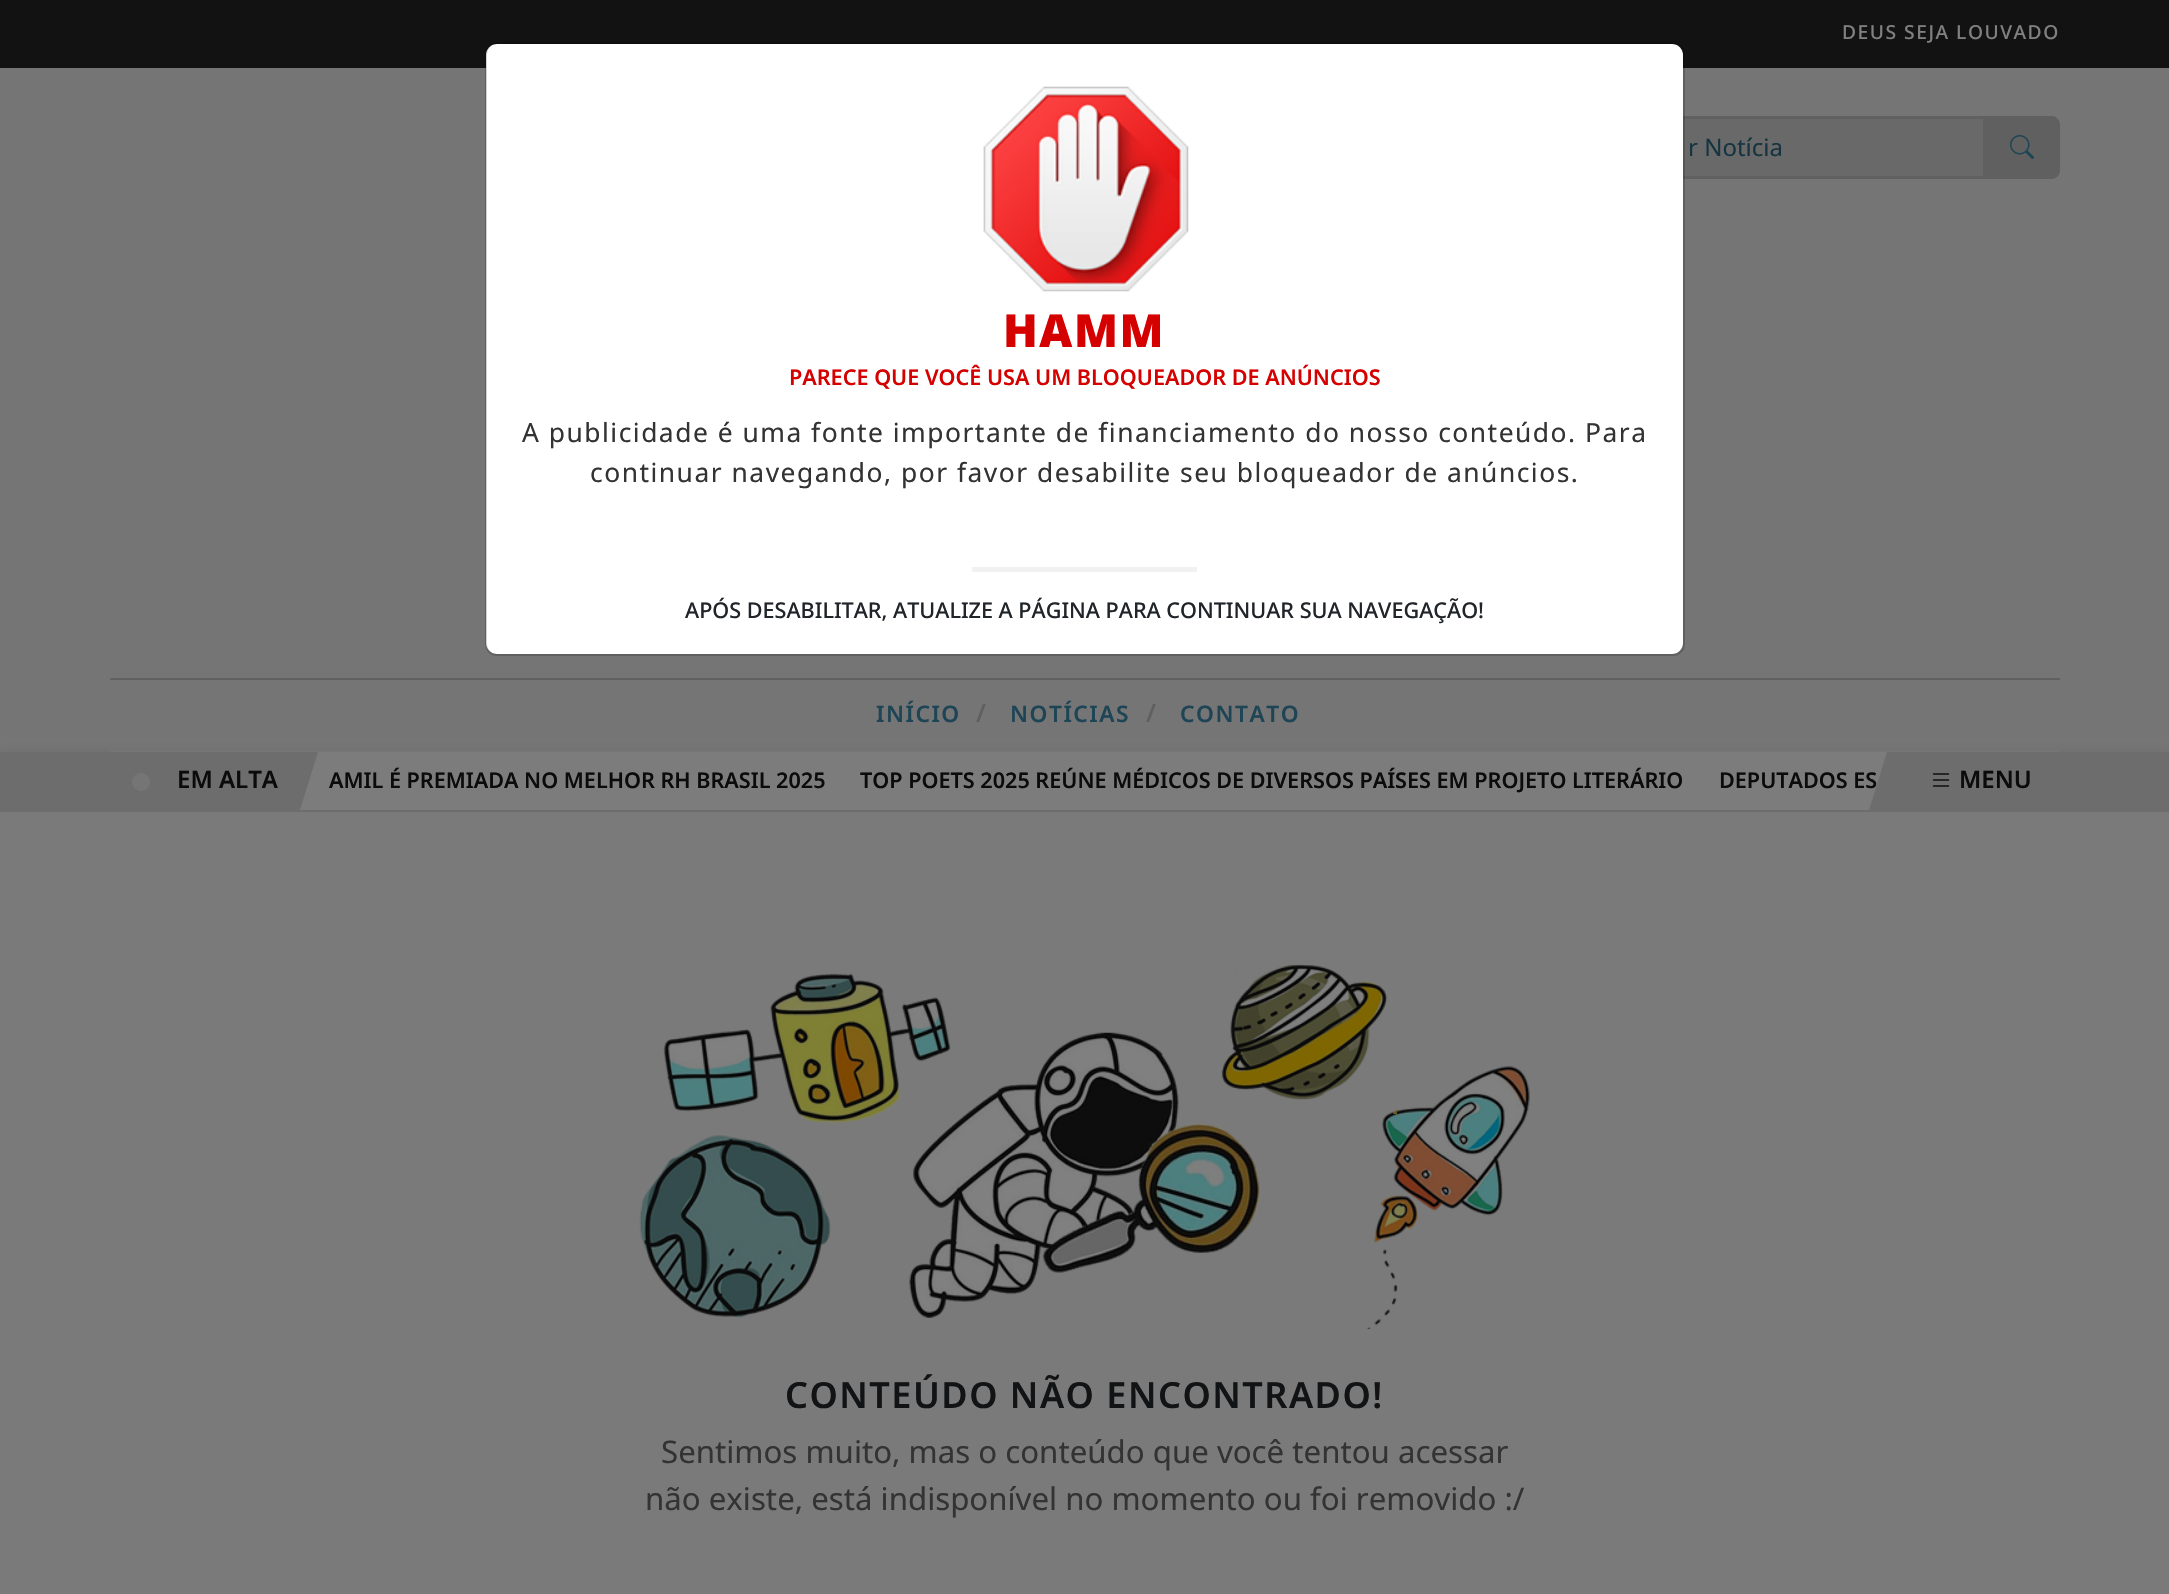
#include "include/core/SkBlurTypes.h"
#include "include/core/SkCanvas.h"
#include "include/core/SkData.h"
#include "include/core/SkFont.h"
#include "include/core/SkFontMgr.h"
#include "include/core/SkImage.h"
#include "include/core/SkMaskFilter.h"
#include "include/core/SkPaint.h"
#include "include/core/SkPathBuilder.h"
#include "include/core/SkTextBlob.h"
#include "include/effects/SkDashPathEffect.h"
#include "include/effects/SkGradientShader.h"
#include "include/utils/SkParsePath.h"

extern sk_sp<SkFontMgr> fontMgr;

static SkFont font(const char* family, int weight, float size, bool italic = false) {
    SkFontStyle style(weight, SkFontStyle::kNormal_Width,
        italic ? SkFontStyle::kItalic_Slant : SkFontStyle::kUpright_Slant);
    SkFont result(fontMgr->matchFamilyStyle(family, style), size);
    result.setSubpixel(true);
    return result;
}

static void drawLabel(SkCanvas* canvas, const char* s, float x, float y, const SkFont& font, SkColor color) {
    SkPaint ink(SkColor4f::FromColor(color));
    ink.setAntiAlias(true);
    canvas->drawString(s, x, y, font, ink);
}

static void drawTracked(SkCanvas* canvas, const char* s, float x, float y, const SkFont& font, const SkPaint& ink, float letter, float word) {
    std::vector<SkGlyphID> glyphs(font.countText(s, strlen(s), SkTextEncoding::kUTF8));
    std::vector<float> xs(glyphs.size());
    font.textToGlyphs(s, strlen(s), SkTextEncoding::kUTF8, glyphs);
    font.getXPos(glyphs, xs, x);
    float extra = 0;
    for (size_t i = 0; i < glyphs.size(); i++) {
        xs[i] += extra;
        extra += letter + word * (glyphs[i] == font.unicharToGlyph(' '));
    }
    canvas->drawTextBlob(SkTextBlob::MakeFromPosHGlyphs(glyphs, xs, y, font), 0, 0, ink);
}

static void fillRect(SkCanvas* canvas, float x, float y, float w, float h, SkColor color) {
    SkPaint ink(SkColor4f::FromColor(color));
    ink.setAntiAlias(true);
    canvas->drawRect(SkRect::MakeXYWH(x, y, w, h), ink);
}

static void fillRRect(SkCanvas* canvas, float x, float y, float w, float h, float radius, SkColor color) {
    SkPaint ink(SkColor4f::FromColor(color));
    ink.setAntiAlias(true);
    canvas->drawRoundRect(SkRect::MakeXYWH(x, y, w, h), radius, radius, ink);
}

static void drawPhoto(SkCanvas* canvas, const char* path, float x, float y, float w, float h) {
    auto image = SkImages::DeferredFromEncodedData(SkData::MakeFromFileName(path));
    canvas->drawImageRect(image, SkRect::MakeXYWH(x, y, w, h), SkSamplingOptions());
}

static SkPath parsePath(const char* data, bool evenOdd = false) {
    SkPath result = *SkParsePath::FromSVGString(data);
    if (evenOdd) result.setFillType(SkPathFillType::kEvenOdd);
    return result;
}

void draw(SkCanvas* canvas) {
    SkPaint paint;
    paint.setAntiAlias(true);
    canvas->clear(0xFF757575);
    fillRect(canvas, 0, 0, 2169, 68, 0xFF121212);
    SkFont font1 = font("Noto Sans", 500, 19.25f);
    paint.setColor(0xFF808080);
    drawTracked(canvas, "DEUS SEJA LOUVADO", 1842, 39, font1, paint, 1.5f, 0);
    fillRect(canvas, 1683, 119, 300, 57, 0xFF696969);
    paint.setColor(0xFF606060);
    canvas->drawPath(parsePath("M1986.5 117.5H2052C2055.5 117.5 2058.5 120.5 2058.5 124V171C2058.5 174.5 2055.5 177.5 2052 177.5H1986.5Z"), paint);
    paint.setStroke(true);
    paint.setStrokeWidth(3);
    canvas->drawPath(parsePath("M1986.5 117.5H2052C2055.5 117.5 2058.5 120.5 2058.5 124V171C2058.5 174.5 2055.5 177.5 2052 177.5H1986.5Z"), paint);
    canvas->drawRect(SkRect::MakeXYWH(1602.5f, 117.5f, 382, 60), paint);
    SkFont font2 = font("Noto Sans", 400, 24);
    drawLabel(canvas, "r Notícia", 1688, 156, font2, 0xFF163440);
    drawPhoto(canvas, "assets/img1.png", 2010, 135, 24, 24);
    paint.setStroke(false);
    paint.setColor(0x33323232);
    paint.setMaskFilter(SkMaskFilter::MakeBlur(kNormal_SkBlurStyle, 6));
    canvas->drawRect(SkRect::MakeXYWH(0, 755, 2169, 60), paint);
    paint.setMaskFilter(nullptr);
    fillRect(canvas, 110, 750, 1950, 2, 0xFF757575);
    fillRect(canvas, 110, 678, 1950, 2, 0xFF606060);
    SkFont font3 = font("Noto Sans", 600, 22.75f);
    paint.setColor(0xFF1E4555);
    drawTracked(canvas, "INÍCIO", 876, 722, font3, paint, 1.5f, 0);
    SkFont font4 = font("Noto Sans", 600, 25);
    paint.setColor(0xFF606060);
    drawTracked(canvas, "/", 976, 722, font4, paint, 1.5f, 0);
    paint.setColor(0xFF1E4555);
    drawTracked(canvas, "NOTÍCIAS", 1010, 722, font3, paint, 1.5f, 0);
    paint.setColor(0xFF606060);
    drawTracked(canvas, "/", 1146, 722, font4, paint, 1.5f, 0);
    paint.setColor(0xFF1E4555);
    drawTracked(canvas, "CONTATO", 1180, 722, font3, paint, 1.5f, 0);
    fillRect(canvas, 0, 752, 2169, 60, 0xFF6D6D6D);
    fillRect(canvas, 300, 752, 1587, 58, 0xFF7C7C7C);
    paint.setColor(0xFF757575);
    canvas->drawCircle(141, 782, 9, paint);
    SkFont font5 = font("Noto Sans", 600, 24);
    drawLabel(canvas, "EM ALTA", 177, 788, font5, 0xFF0B0B0B);
    paint.setColor(0xFF6D6D6D);
    canvas->drawPath(parsePath("M300 752H318L300 810Z"), paint);
    SkFont font6 = font("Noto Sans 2", 600, 21.6f);
    drawLabel(canvas, "AMIL É PREMIADA NO MELHOR RH BRASIL 2025", 329, 788, font6, 0xFF0B0B0B);
    drawLabel(canvas, "TOP POETS 2025 REÚNE MÉDICOS DE DIVERSOS PAÍSES EM PROJETO LITERÁRIO", 860, 788, font6, 0xFF0B0B0B);
    drawLabel(canvas, "DEPUTADOS ES", 1719, 788, font6, 0xFF0B0B0B);
    canvas->drawPath(parsePath("M1887 810H1869L1887 752Z"), paint);
    drawPhoto(canvas, "assets/img2.png", 1932, 773, 18, 14);
    drawLabel(canvas, "MENU", 1959, 788, font5, 0xFF0B0B0B);
    fillRRect(canvas, 486, 44, 1197, 610, 11, 0xFFFFFFFF);
    paint.setStroke(true);
    paint.setStrokeWidth(2);
    paint.setColor(0x2E000000);
    canvas->drawRoundRect(SkRect::MakeXYWH(486, 43, 1198, 612), 11, 11, paint);
    drawPhoto(canvas, "assets/img3.png", 983, 86, 206, 206);
    SkFont font7 = font("Noto Sans", 900, 45.5f);
    paint.setStroke(false);
    paint.setColor(0xFFD50000);
    drawTracked(canvas, "HAMM", 1003, 347, font7, paint, 1.5f, 0);
    drawLabel(canvas, "PARECE QUE VOCÊ USA UM BLOQUEADOR DE ANÚNCIOS", 789, 385, font6, 0xFFD50000);
    SkFont font8 = font("Noto Sans", 400, 26.4f);
    paint.setColor(0xFF333333);
    drawTracked(canvas, "A publicidade é uma fonte importante de financiamento do nosso conteúdo. Para", 522, 442, font8, paint, 1.5f, 0);
    drawTracked(canvas, "continuar navegando, por favor desabilite seu bloqueador de anúncios.", 590, 482, font8, paint, 1.5f, 0);
    fillRect(canvas, 972, 567, 225, 5, 0xFFF1F1F1);
    SkFont font9 = font("Noto Sans", 500, 21.6f);
    drawLabel(canvas, "APÓS DESABILITAR, ATUALIZE A PÁGINA PARA CONTINUAR SUA NAVEGAÇÃO!", 685, 618, font9, 0xFF212529);
    fillRect(canvas, 0, 812, 2169, 782, 0xFF7A7A7A);
    drawPhoto(canvas, "assets/img4.png", 639, 964, 891, 365);
    SkFont font10 = font("Noto Sans", 600, 36);
    paint.setColor(0xFF111315);
    drawTracked(canvas, "CONTEÚDO NÃO ENCONTRADO!", 785, 1408, font10, paint, 1.5f, 0);
    SkFont font11 = font("Noto Sans", 400, 31.2f);
    drawLabel(canvas, "Sentimos muito, mas o conteúdo que você tentou acessar", 661, 1463, font11, 0xFF333333);
    drawLabel(canvas, "não existe, está indisponível no momento ou foi removido :/", 645, 1510, font11, 0xFF333333);
}
